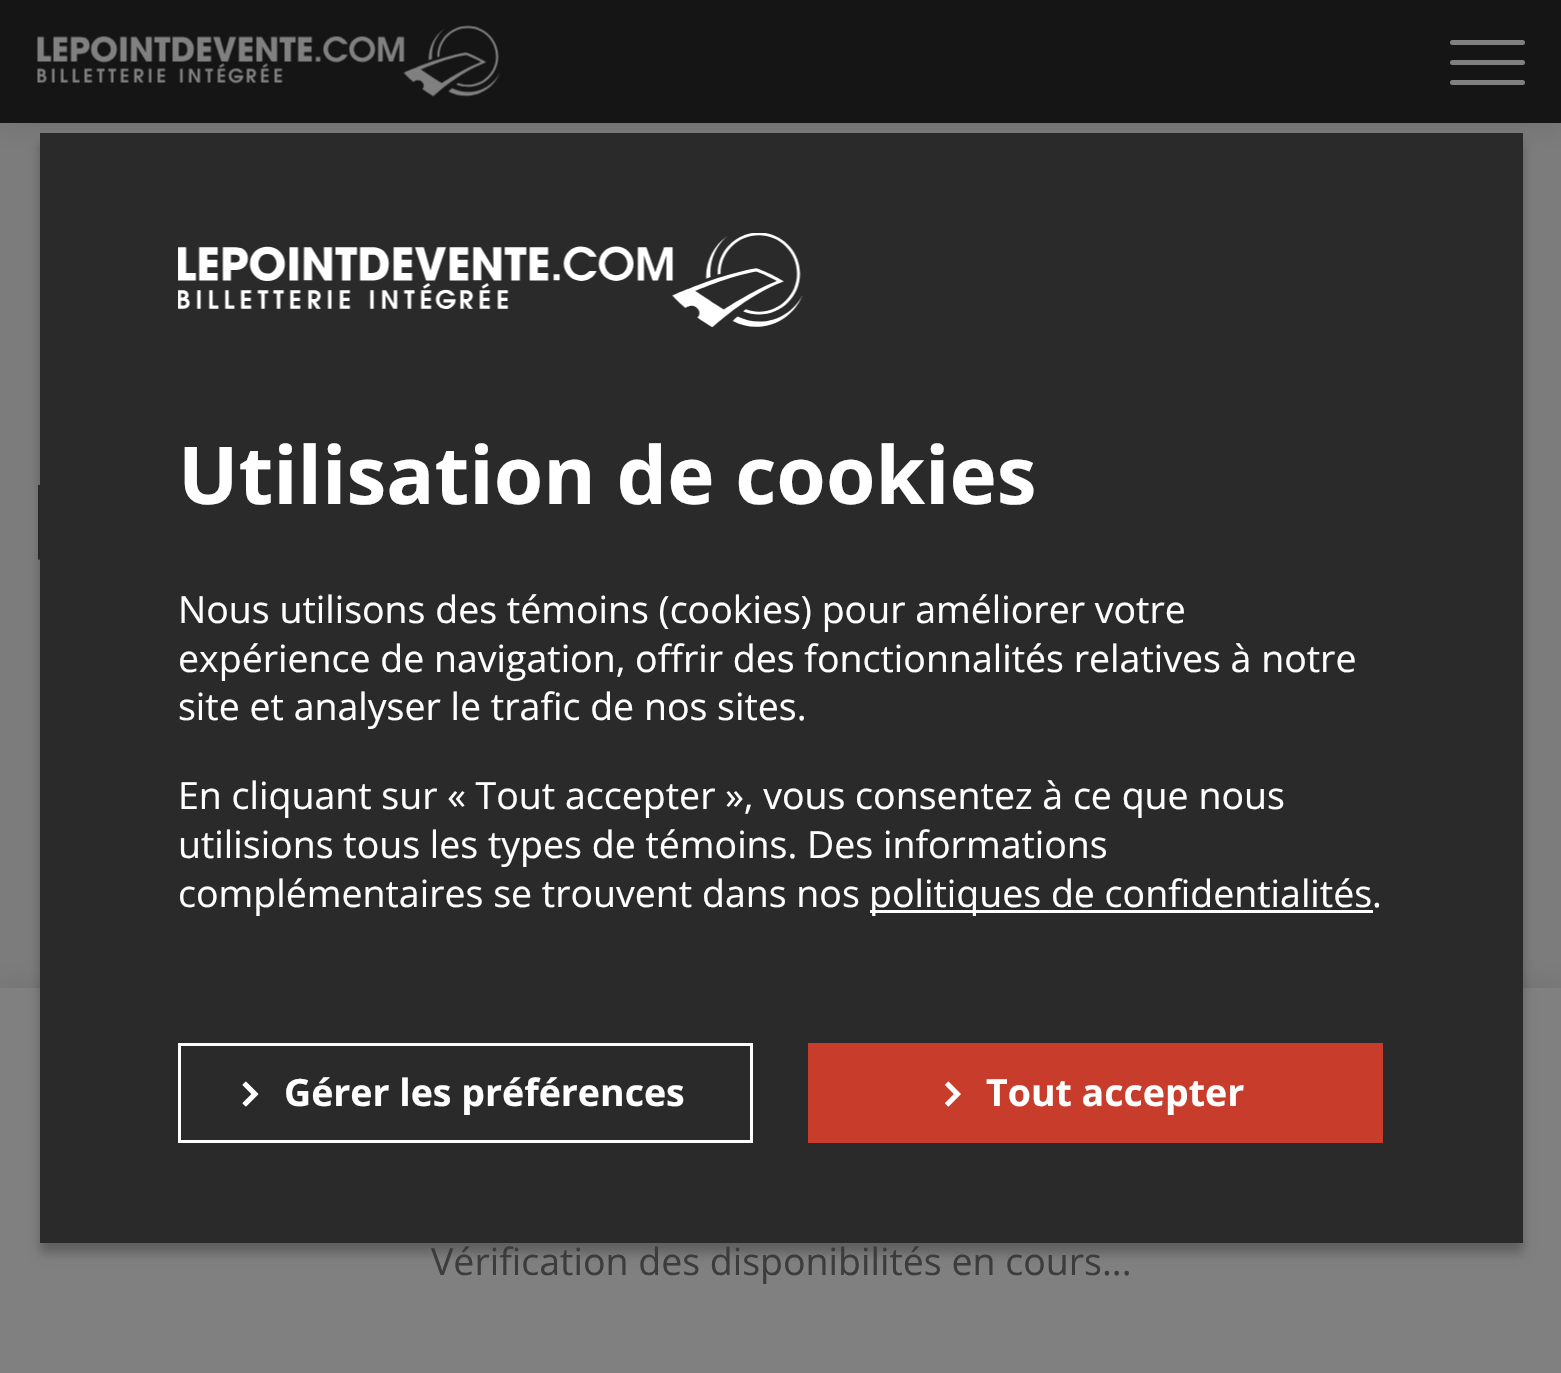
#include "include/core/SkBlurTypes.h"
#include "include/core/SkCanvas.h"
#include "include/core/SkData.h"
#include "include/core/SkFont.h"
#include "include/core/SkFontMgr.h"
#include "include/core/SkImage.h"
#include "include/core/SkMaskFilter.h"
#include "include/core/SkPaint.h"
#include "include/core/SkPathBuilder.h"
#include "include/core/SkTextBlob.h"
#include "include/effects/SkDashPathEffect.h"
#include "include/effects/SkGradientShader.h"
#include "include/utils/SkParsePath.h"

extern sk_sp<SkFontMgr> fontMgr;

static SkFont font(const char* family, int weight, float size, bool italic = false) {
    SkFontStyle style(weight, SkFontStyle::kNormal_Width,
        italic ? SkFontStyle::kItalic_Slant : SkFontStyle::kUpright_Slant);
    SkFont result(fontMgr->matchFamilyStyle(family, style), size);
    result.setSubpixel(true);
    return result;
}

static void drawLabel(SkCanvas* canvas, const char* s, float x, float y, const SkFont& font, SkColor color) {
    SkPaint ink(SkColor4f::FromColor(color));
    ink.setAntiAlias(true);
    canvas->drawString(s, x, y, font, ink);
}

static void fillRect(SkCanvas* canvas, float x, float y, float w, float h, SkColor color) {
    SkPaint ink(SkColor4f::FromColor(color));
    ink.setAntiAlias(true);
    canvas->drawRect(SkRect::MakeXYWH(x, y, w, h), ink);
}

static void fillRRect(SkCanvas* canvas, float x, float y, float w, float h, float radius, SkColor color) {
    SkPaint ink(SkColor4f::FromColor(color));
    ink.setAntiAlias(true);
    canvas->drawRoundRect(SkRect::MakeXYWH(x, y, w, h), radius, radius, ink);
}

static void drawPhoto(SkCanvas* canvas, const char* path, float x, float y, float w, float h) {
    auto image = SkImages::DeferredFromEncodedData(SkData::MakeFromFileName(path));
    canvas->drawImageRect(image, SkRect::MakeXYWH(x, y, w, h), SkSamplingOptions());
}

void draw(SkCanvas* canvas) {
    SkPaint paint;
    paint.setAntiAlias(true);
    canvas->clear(0xFF7C7C7C);
    paint.setColor(0x1F000000);
    paint.setMaskFilter(SkMaskFilter::MakeBlur(kNormal_SkBlurStyle, 15));
    canvas->drawRect(SkRect::MakeXYWH(0, -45, 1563, 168), paint);
    paint.setMaskFilter(nullptr);
    fillRect(canvas, 0, 0, 1561, 123, 0xFF151515);
    drawPhoto(canvas, "assets/img1.png", 37, 25, 463, 72);
    fillRRect(canvas, 1450, 40, 75, 5, 2.5f, 0xFF808080);
    fillRRect(canvas, 1450, 60, 75, 5, 2.5f, 0xFF808080);
    fillRRect(canvas, 1450, 80, 75, 5, 2.5f, 0xFF808080);
    drawPhoto(canvas, "assets/img5.png", 38, 485, 2, 75);
    paint.setColor(0x1A000000);
    paint.setMaskFilter(SkMaskFilter::MakeBlur(kNormal_SkBlurStyle, 15));
    canvas->drawRect(SkRect::MakeXYWH(0, 988, 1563, 385), paint);
    paint.setMaskFilter(nullptr);
    fillRect(canvas, 0, 988, 1561, 385, 0xFF808080);
    paint.setColor(0x40000000);
    paint.setMaskFilter(SkMaskFilter::MakeBlur(kNormal_SkBlurStyle, 5));
    canvas->drawRect(SkRect::MakeXYWH(40, 143, 1483, 1110), paint);
    paint.setMaskFilter(nullptr);
    fillRect(canvas, 40, 133, 1483, 1110, 0xFF2A2A2A);
    drawPhoto(canvas, "assets/img2.png", 178, 233, 625, 95);
    SkFont font1 = font("Open Sans", 700, 80);
    drawLabel(canvas, "Utilisation de cookies", 178, 504, font1, 0xFFFFFFFF);
    SkFont font2 = font("Open Sans", 400, 37.5f);
    drawLabel(canvas, "Nous utilisons des témoins (cookies) pour améliorer votre", 178, 623, font2, 0xFFFFFFFF);
    drawLabel(canvas, "expérience de navigation, offrir des fonctionnalités relatives à notre", 178, 672, font2, 0xFFFFFFFF);
    drawLabel(canvas, "site et analyser le trafic de nos sites.", 178, 720, font2, 0xFFFFFFFF);
    drawLabel(canvas, "En cliquant sur « Tout accepter », vous consentez à ce que nous", 178, 809, font2, 0xFFFFFFFF);
    drawLabel(canvas, "utilisions tous les types de témoins. Des informations", 178, 858, font2, 0xFFFFFFFF);
    drawLabel(canvas, "complémentaires se trouvent dans nos", 178, 907, font2, 0xFFFFFFFF);
    fillRect(canvas, 870, 910, 503, 3, 0xFFFFFFFF);
    drawLabel(canvas, "politiques de confidentialités.", 869, 907, font2, 0xFFFFFFFF);
    paint.setStroke(true);
    paint.setStrokeWidth(3);
    paint.setColor(0xFFFFFFFF);
    canvas->drawRect(SkRect::MakeXYWH(179.5f, 1044.5f, 572, 97), paint);
    drawPhoto(canvas, "assets/img3.png", 242, 1081, 17, 26);
    SkFont font3 = font("Open Sans", 700, 37.5f);
    drawLabel(canvas, "Gérer les préférences", 284, 1106, font3, 0xFFFFFFFF);
    fillRect(canvas, 808, 1043, 575, 100, 0xFFC83C2B);
    drawPhoto(canvas, "assets/img4.png", 945, 1081, 16, 26);
    drawLabel(canvas, "Tout accepter", 986, 1106, font3, 0xFFFFFFFF);
    drawLabel(canvas, "Vérification des disponibilités en cours...", 431, 1275, font2, 0xFF3C3C3C);
}
